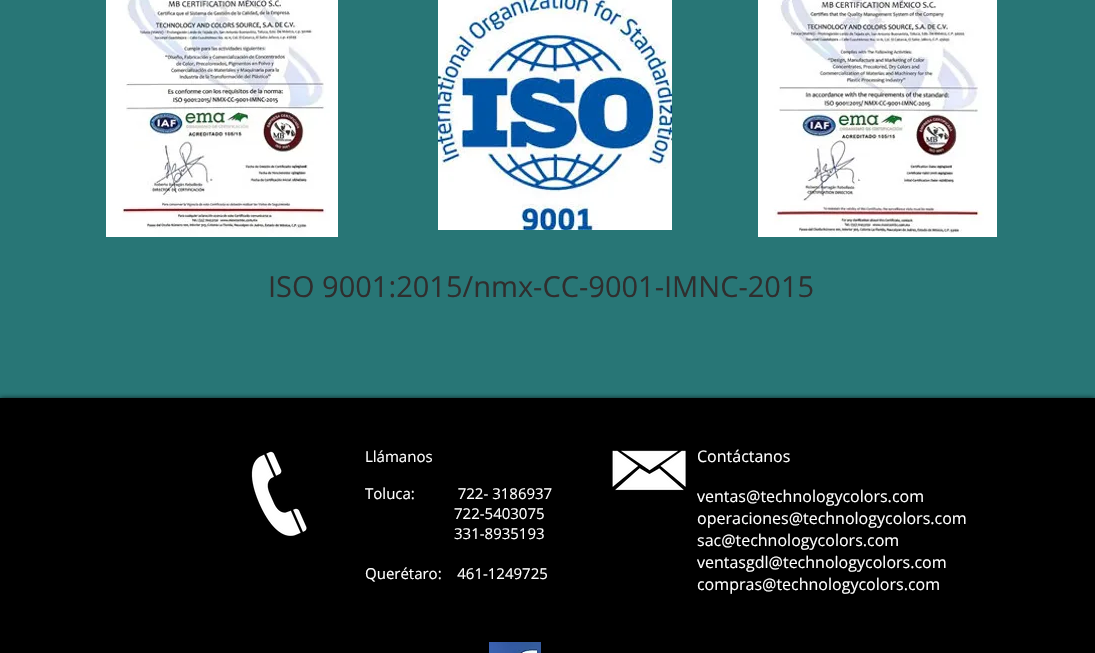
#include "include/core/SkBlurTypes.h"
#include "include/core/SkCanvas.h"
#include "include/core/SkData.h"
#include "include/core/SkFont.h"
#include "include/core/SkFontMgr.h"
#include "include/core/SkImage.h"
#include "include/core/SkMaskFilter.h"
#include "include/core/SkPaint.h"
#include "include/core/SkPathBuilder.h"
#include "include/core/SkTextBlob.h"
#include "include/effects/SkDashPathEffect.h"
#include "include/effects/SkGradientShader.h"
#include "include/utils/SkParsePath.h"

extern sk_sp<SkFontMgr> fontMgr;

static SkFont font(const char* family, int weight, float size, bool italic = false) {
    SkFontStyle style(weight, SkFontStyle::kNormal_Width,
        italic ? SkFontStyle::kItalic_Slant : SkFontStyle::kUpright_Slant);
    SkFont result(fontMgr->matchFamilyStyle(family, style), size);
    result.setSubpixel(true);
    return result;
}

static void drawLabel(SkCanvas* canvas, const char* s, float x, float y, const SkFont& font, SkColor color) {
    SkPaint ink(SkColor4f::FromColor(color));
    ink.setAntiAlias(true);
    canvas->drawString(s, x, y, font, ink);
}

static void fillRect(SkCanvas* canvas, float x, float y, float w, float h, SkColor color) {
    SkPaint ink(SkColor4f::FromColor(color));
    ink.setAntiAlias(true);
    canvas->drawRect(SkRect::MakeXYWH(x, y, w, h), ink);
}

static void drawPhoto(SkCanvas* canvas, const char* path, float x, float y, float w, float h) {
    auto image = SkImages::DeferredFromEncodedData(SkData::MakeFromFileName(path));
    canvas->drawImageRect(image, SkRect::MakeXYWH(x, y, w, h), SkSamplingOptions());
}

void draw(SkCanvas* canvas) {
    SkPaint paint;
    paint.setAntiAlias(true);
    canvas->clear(0xFF287676);
    drawPhoto(canvas, "assets/img1.png", 106, 0, 232, 237);
    drawPhoto(canvas, "assets/img2.png", 438, 0, 234, 230);
    drawPhoto(canvas, "assets/img3.png", 758, 0, 239, 237);
    SkFont font1 = font("Open Sans", 400, 29);
    drawLabel(canvas, "ISO 9001:2015/nmx-CC-9001-IMNC-2015", 268, 297, font1, 0xFF2F2E2E);
    paint.setColor(0xB3000000);
    paint.setMaskFilter(SkMaskFilter::MakeBlur(kNormal_SkBlurStyle, 2.5f));
    canvas->drawRect(SkRect::MakeXYWH(0, 398, 1095, 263), paint);
    paint.setMaskFilter(nullptr);
    fillRect(canvas, 0, 398, 1095, 255, 0xFF000000);
    drawPhoto(canvas, "assets/img4.png", 251, 451, 56, 85);
    SkFont font2 = font("Open Sans", 400, 15);
    drawLabel(canvas, "Llámanos", 365, 462, font2, 0xFFFFFFFF);
    drawLabel(canvas, "Toluca:           722- 3186937", 365, 499, font2, 0xFFFFFFFF);
    drawLabel(canvas, "722-5403075", 454, 519, font2, 0xFFFFFFFF);
    drawLabel(canvas, "331-8935193", 454, 539, font2, 0xFFFFFFFF);
    drawLabel(canvas, "Querétaro:    461-1249725", 365, 579, font2, 0xFFFFFFFF);
    drawPhoto(canvas, "assets/img5.png", 612, 450, 74, 41);
    SkFont font3 = font("Open Sans", 400, 16);
    drawLabel(canvas, "Contáctanos", 697, 462, font3, 0xFFFFFFFF);
    drawLabel(canvas, "ventas@technologycolors.com", 697, 502, font3, 0xFFFFFFFF);
    drawLabel(canvas, "operaciones@technologycolors.com", 697, 524, font3, 0xFFFFFFFF);
    drawLabel(canvas, "sac@technologycolors.com", 697, 546, font3, 0xFFFFFFFF);
    drawLabel(canvas, "ventasgdl@technologycolors.com", 697, 568, font3, 0xFFFFFFFF);
    drawLabel(canvas, "compras@technologycolors.com", 697, 590, font3, 0xFFFFFFFF);
    drawPhoto(canvas, "assets/img6.png", 489, 642, 52, 11);
}
